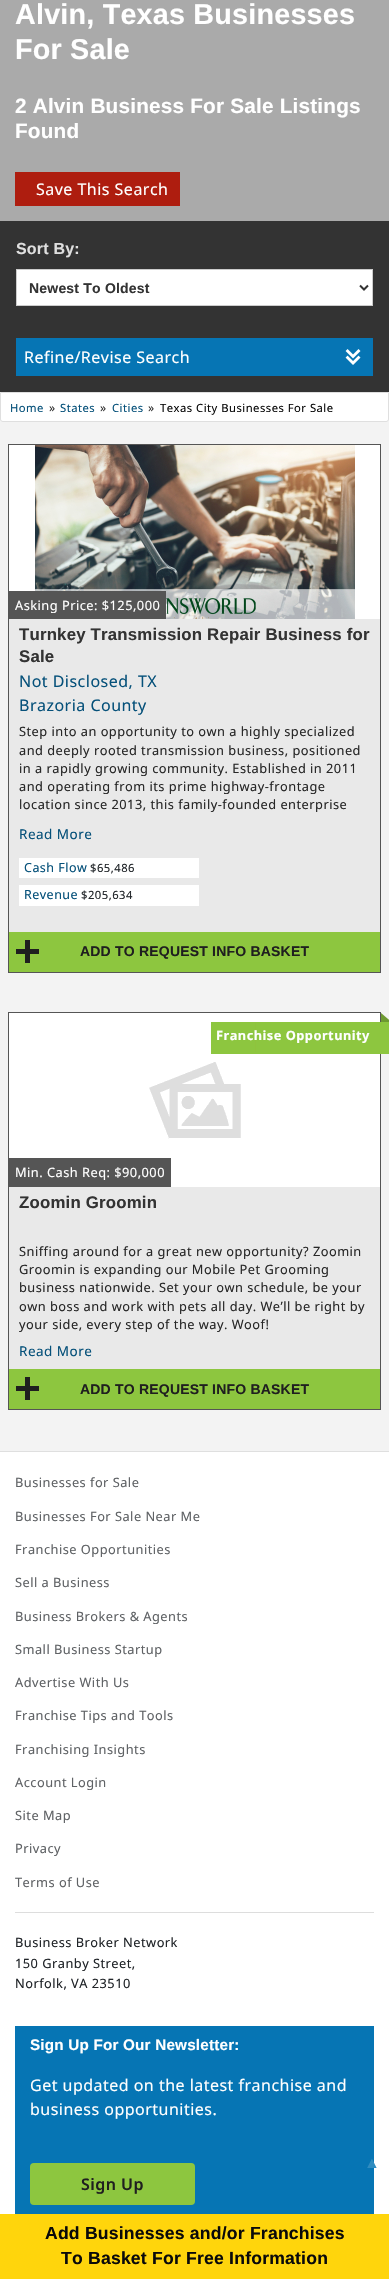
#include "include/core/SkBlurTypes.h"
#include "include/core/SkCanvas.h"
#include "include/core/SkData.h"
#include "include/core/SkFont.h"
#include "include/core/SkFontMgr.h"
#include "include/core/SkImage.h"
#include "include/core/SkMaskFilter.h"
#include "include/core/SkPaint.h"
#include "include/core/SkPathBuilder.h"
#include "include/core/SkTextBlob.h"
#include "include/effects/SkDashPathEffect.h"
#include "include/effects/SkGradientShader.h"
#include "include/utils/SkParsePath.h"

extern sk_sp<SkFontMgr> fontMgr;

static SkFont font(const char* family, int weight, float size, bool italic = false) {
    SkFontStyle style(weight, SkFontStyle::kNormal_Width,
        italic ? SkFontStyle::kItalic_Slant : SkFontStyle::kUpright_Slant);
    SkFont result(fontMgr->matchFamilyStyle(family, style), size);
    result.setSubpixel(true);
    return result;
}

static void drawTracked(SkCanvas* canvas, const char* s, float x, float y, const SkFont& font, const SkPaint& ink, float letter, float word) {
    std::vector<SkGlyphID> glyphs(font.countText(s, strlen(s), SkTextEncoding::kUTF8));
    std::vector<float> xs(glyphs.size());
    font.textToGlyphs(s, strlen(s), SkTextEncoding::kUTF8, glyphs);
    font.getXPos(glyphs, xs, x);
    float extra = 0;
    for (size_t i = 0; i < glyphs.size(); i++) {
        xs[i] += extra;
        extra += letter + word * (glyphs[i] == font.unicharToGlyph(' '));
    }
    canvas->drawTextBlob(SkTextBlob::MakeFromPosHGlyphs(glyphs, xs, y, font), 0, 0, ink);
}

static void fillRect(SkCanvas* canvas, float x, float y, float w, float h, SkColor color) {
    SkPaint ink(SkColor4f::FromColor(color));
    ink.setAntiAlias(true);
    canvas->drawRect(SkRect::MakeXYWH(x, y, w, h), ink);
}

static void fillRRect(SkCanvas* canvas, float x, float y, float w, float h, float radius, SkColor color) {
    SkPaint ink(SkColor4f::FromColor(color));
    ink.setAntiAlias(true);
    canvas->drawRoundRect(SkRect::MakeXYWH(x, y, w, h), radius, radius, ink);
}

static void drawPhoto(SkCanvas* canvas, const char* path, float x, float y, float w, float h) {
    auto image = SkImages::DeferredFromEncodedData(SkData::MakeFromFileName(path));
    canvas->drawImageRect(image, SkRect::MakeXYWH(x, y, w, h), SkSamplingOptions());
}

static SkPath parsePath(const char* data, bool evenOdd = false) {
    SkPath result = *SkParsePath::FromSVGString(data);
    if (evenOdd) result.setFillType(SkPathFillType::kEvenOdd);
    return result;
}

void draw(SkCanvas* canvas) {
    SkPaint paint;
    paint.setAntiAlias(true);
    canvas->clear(0xFFFFFFFF);
    fillRect(canvas, 0, 419, 389, 1032, 0xFFF3F3F3);
    fillRect(canvas, 0, 0, 389, 221, 0xFFAAAAAA);
    SkFont font1 = font("Liberation Sans", 700, 28.75f);
    paint.setColor(0xFFFFFFFF);
    drawTracked(canvas, "Alvin, Texas Businesses", 15, 24, font1, paint, 0.2f, 0);
    drawTracked(canvas, "For Sale", 15, 59, font1, paint, 0.2f, 0);
    SkFont font2 = font("Liberation Sans", 700, 20.75f);
    drawTracked(canvas, "2 Alvin Business For Sale Listings", 15, 113, font2, paint, 0.2f, 0);
    drawTracked(canvas, "Found", 15, 138, font2, paint, 0.2f, 0);
    fillRect(canvas, 15, 172, 165, 34, 0xFFAE1D0F);
    SkFont font3 = font("Noto Sans", 400, 16);
    drawTracked(canvas, "Save This Search", 36, 195, font3, paint, 0.48f, 0);
    fillRect(canvas, 0, 221, 389, 171, 0xFF333333);
    SkFont font4 = font("Liberation Sans", 700, 16);
    paint.setColor(0xFFDFDFDF);
    drawTracked(canvas, "Sort By:", 16, 254, font4, paint, 0.2f, 0);
    paint.setColor(0xFFFFFFFF);
    canvas->drawRect(SkRect::MakeXYWH(16.5f, 269.5f, 356, 36), paint);
    paint.setStroke(true);
    paint.setStrokeWidth(1);
    paint.setColor(0xFFCCCCCC);
    canvas->drawRect(SkRect::MakeXYWH(16.5f, 269.5f, 356, 36), paint);
    paint.setStrokeWidth(2);
    paint.setColor(0xFF333333);
    canvas->drawPath(parsePath("M360 285.5L364 289.5L368 285.5"), paint);
    SkFont font5 = font("Liberation Sans", 700, 14);
    paint.setStroke(false);
    drawTracked(canvas, "Newest To Oldest", 29, 293, font5, paint, 0.2f, 0);
    fillRect(canvas, 16, 338, 357, 38, 0xFF0675B4);
    paint.setColor(0xFFFFFFFF);
    drawTracked(canvas, "Refine/Revise Search", 24, 363, font3, paint, 0.48f, 0);
    drawPhoto(canvas, "assets/img1.png", 345, 349, 16, 16);
    canvas->drawPath(parsePath("M.5 392.5H388.5V419C388.5 420.5 387.5 421.5 386 421.5H3C1.5 421.5 .5 420.5 .5 419Z"), paint);
    paint.setStroke(true);
    paint.setStrokeWidth(1);
    paint.setColor(0xFFDFDFDF);
    canvas->drawPath(parsePath("M.5 392.5H388.5V419C388.5 420.5 387.5 421.5 386 421.5H3C1.5 421.5 .5 420.5 .5 419Z"), paint);
    SkFont font6 = font("Noto Sans", 400, 11.25f);
    paint.setStroke(false);
    paint.setColor(0xFF06517A);
    drawTracked(canvas, "Home", 10, 412, font6, paint, 0.48f, 0);
    SkFont font7 = font("Noto Sans", 400, 12);
    paint.setColor(0xFF333333);
    drawTracked(canvas, "»", 49, 412, font7, paint, 0.48f, 0);
    paint.setColor(0xFF06517A);
    drawTracked(canvas, "States", 60, 412, font6, paint, 0.48f, 0);
    paint.setColor(0xFF333333);
    drawTracked(canvas, "»", 100, 412, font7, paint, 0.48f, 0);
    paint.setColor(0xFF06517A);
    drawTracked(canvas, "Cities", 112, 412, font6, paint, 0.48f, 0);
    paint.setColor(0xFF333333);
    drawTracked(canvas, "»", 148, 412, font7, paint, 0.48f, 0);
    paint.setColor(0xFF0A0A0A);
    drawTracked(canvas, "Texas City Businesses For Sale", 160, 412, font6, paint, 0.48f, 0);
    fillRect(canvas, 9, 619, 371, 313, 0xFFE9E9E9);
    paint.setStroke(true);
    paint.setColor(0xFF555555);
    canvas->drawRect(SkRect::MakeXYWH(8.5f, 444.5f, 372, 528), paint);
    fillRect(canvas, 9, 445, 371, 174, 0xFFFFFFFF);
    drawPhoto(canvas, "assets/img2.png", 35, 445, 320, 174);
    fillRect(canvas, 9, 591, 157, 28, 0xFF555555);
    SkFont font8 = font("Noto Sans", 400, 12.8f);
    paint.setStroke(false);
    paint.setColor(0xFFFFFFFF);
    drawTracked(canvas, "Asking Price: $125,000", 15, 610, font8, paint, 0.48f, 0);
    SkFont font9 = font("Liberation Sans", 700, 16.8f);
    paint.setColor(0xFF333333);
    drawTracked(canvas, "Turnkey Transmission Repair Business for", 19, 640, font9, paint, 0.2f, 0);
    drawTracked(canvas, "Sale", 19, 662, font9, paint, 0.2f, 0);
    paint.setColor(0xFF06517A);
    drawTracked(canvas, "Not Disclosed, TX", 19, 687, font3, paint, 0.48f, 0);
    drawTracked(canvas, "Brazoria County", 19, 711, font3, paint, 0.48f, 0);
    paint.setColor(0xFF282828);
    drawTracked(canvas, "Step into an opportunity to own a highly specialized", 19, 736, font8, paint, 0.48f, 0);
    drawTracked(canvas, "and deeply rooted transmission business, positioned", 19, 755, font8, paint, 0.48f, 0);
    drawTracked(canvas, "in a rapidly growing community. Established in 2011", 19, 773, font8, paint, 0.48f, 0);
    drawTracked(canvas, "and operating from its prime highway-frontage", 19, 791, font8, paint, 0.48f, 0);
    drawTracked(canvas, "location since 2013, this family-founded enterprise", 19, 809, font8, paint, 0.48f, 0);
    SkFont font10 = font("Noto Sans", 400, 13.5f);
    paint.setColor(0xFF06517A);
    drawTracked(canvas, "Read More", 19, 839, font10, paint, 0.48f, 0);
    fillRect(canvas, 19, 858, 180, 20, 0xFFFFFFFF);
    SkFont font11 = font("Noto Sans", 400, 12.5f);
    drawTracked(canvas, "Cash Flow", 24, 872, font11, paint, 0.48f, 0);
    paint.setColor(0xFF212529);
    drawTracked(canvas, "$65,486", 90, 872, font6, paint, 0.48f, 0);
    fillRect(canvas, 19, 885, 180, 21, 0xFFFFFFFF);
    paint.setColor(0xFF06517A);
    drawTracked(canvas, "Revenue", 24, 899, font11, paint, 0.48f, 0);
    paint.setColor(0xFF212529);
    drawTracked(canvas, "$205,634", 81, 899, font6, paint, 0.48f, 0);
    fillRect(canvas, 9, 932, 371, 40, 0xFF8DC63F);
    fillRect(canvas, 25, 940, 5, 23, 0xFF1F1F1F);
    paint.setColor(0xFF1F1F1F);
    drawTracked(canvas, "ADD TO REQUEST INFO BASKET", 80, 956, font5, paint, 0.2f, 0);
    fillRect(canvas, 16, 949, 23, 5, 0xFF1F1F1F);
    fillRect(canvas, 9, 1187, 371, 182, 0xFFE9E9E9);
    paint.setStroke(true);
    paint.setColor(0xFF555555);
    canvas->drawRect(SkRect::MakeXYWH(8.5f, 1012.5f, 372, 397), paint);
    fillRect(canvas, 9, 1013, 371, 174, 0xFFFFFFFF);
    drawPhoto(canvas, "assets/img3.png", 211, 1013, 178, 41);
    SkFont font12 = font("Noto Sans", 700, 12.8f);
    paint.setStroke(false);
    paint.setColor(0xFFFFFFFF);
    drawTracked(canvas, "Franchise Opportunity", 216, 1040, font12, paint, 0.48f, 0);
    drawPhoto(canvas, "assets/img4.png", 149, 1062, 92, 77);
    fillRect(canvas, 9, 1158, 162, 29, 0xFF555555);
    drawTracked(canvas, "Min. Cash Req: $90,000", 15, 1177, font8, paint, 0.48f, 0);
    paint.setColor(0xFF333333);
    drawTracked(canvas, "Zoomin Groomin", 19, 1208, font9, paint, 0.2f, 0);
    paint.setColor(0xFF282828);
    drawTracked(canvas, "Sniffing around for a great new opportunity? Zoomin", 19, 1256, font8, paint, 0.48f, 0);
    drawTracked(canvas, "Groomin is expanding our Mobile Pet Grooming", 19, 1274, font8, paint, 0.48f, 0);
    drawTracked(canvas, "business nationwide. Set your own schedule, be your", 19, 1292, font8, paint, 0.48f, 0);
    drawTracked(canvas, "own boss and work with pets all day. We’ll be right by", 19, 1311, font8, paint, 0.48f, 0);
    drawTracked(canvas, "your side, every step of the way. Woof!", 19, 1329, font8, paint, 0.48f, 0);
    paint.setColor(0xFF06517A);
    drawTracked(canvas, "Read More", 19, 1356, font10, paint, 0.48f, 0);
    fillRect(canvas, 9, 1369, 371, 40, 0xFF8DC63F);
    fillRect(canvas, 25, 1377, 5, 23, 0xFF1F1F1F);
    paint.setColor(0xFF1F1F1F);
    drawTracked(canvas, "ADD TO REQUEST INFO BASKET", 80, 1394, font5, paint, 0.2f, 0);
    fillRect(canvas, 16, 1386, 23, 5, 0xFF1F1F1F);
    fillRect(canvas, 15, 2026, 359, 188, 0xFF0675B4);
    SkFont font13 = font("Liberation Sans", 400, 16);
    paint.setColor(0xFF2F8CC0);
    drawTracked(canvas, "▲", 364, 2168, font13, paint, 0.48f, 0);
    fillRect(canvas, 0, 1451, 389, 1, 0xFFDFDFDF);
    paint.setColor(0xFF5F6265);
    drawTracked(canvas, "Businesses for Sale", 15, 1487, font8, paint, 0.48f, 0);
    drawTracked(canvas, "Businesses For Sale Near Me", 15, 1521, font8, paint, 0.48f, 0);
    drawTracked(canvas, "Franchise Opportunities", 15, 1554, font8, paint, 0.48f, 0);
    drawTracked(canvas, "Sell a Business", 15, 1587, font8, paint, 0.48f, 0);
    drawTracked(canvas, "Business Brokers & Agents", 15, 1621, font8, paint, 0.48f, 0);
    drawTracked(canvas, "Small Business Startup", 15, 1654, font8, paint, 0.48f, 0);
    drawTracked(canvas, "Advertise With Us", 15, 1687, font8, paint, 0.48f, 0);
    drawTracked(canvas, "Franchise Tips and Tools", 15, 1720, font8, paint, 0.48f, 0);
    drawTracked(canvas, "Franchising Insights", 15, 1754, font8, paint, 0.48f, 0);
    drawTracked(canvas, "Account Login", 15, 1787, font8, paint, 0.48f, 0);
    drawTracked(canvas, "Site Map", 15, 1820, font8, paint, 0.48f, 0);
    drawTracked(canvas, "Privacy", 15, 1853, font8, paint, 0.48f, 0);
    drawTracked(canvas, "Terms of Use", 15, 1887, font8, paint, 0.48f, 0);
    fillRect(canvas, 15, 1912, 359, 1, 0xFFDDDDDD);
    paint.setColor(0xFF212529);
    drawTracked(canvas, "Business Broker Network", 15, 1947, font8, paint, 0.48f, 0);
    drawTracked(canvas, "150 Granby Street,", 15, 1968, font8, paint, 0.48f, 0);
    drawTracked(canvas, "Norfolk, VA 23510", 15, 1988, font8, paint, 0.48f, 0);
    SkFont font14 = font("Liberation Sans", 700, 15.25f);
    paint.setColor(0xFFFFFFFF);
    drawTracked(canvas, "Sign Up For Our Newsletter:", 30, 2050, font14, paint, 0.2f, 0);
    drawTracked(canvas, "Get updated on the latest franchise and", 30, 2091, font3, paint, 0.48f, 0);
    drawTracked(canvas, "business opportunities.", 30, 2115, font3, paint, 0.48f, 0);
    fillRRect(canvas, 30, 2163, 165, 42, 4, 0xFF8DC63F);
    SkFont font15 = font("Noto Sans", 600, 16);
    paint.setColor(0xFF1F1F1F);
    drawTracked(canvas, "Sign Up", 81, 2190, font15, paint, 0.48f, 0);
    fillRect(canvas, 0, 2214, 389, 65, 0xFFFFD50C);
    SkFont font16 = font("Liberation Sans", 700, 17.6f);
    paint.setColor(0xFF0A0A0A);
    drawTracked(canvas, "Add Businesses and/or Franchises", 45, 2239, font16, paint, 0.2f, 0);
    drawTracked(canvas, "To Basket For Free Information", 61, 2264, font16, paint, 0.2f, 0);
}
